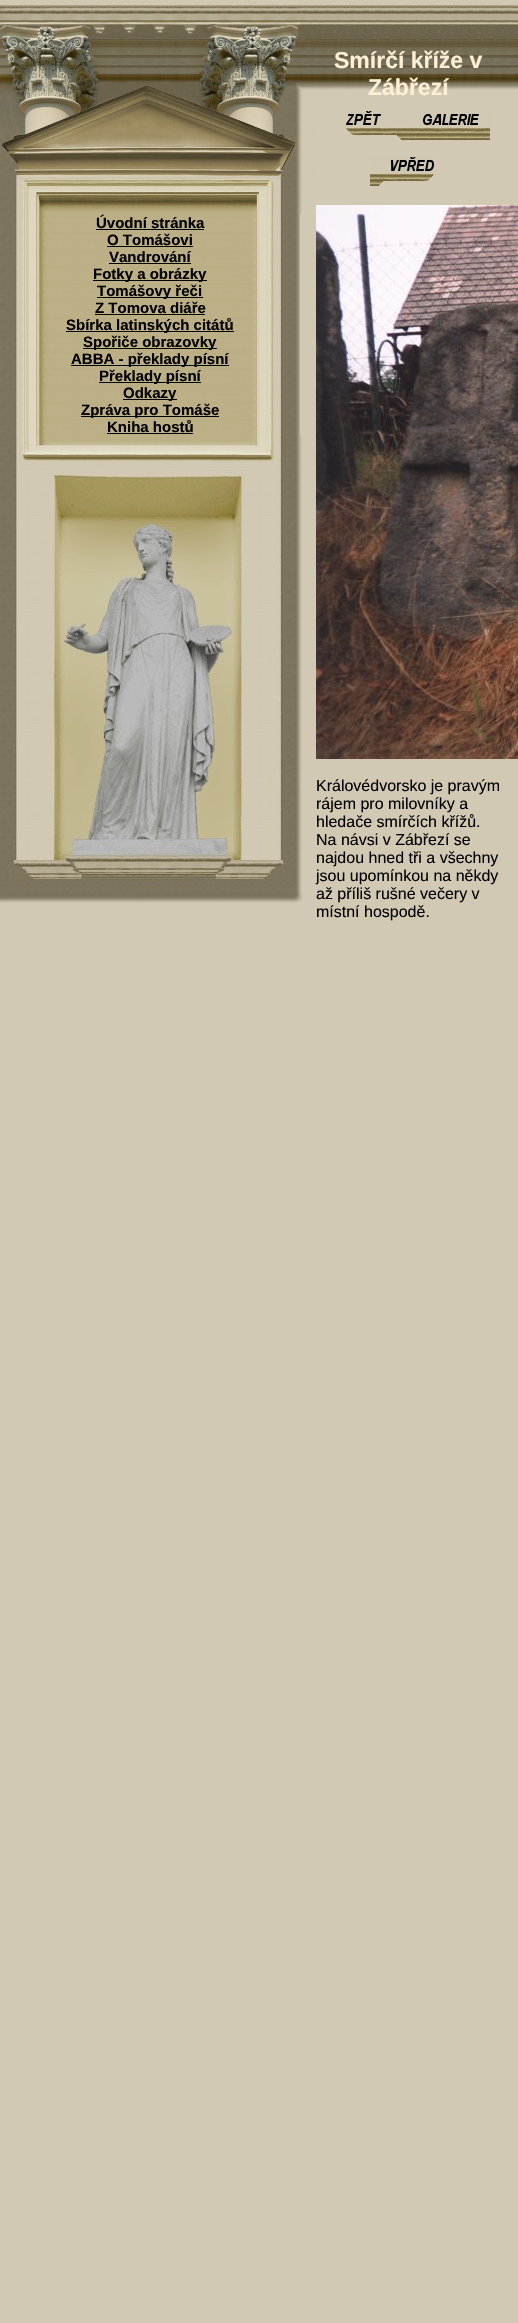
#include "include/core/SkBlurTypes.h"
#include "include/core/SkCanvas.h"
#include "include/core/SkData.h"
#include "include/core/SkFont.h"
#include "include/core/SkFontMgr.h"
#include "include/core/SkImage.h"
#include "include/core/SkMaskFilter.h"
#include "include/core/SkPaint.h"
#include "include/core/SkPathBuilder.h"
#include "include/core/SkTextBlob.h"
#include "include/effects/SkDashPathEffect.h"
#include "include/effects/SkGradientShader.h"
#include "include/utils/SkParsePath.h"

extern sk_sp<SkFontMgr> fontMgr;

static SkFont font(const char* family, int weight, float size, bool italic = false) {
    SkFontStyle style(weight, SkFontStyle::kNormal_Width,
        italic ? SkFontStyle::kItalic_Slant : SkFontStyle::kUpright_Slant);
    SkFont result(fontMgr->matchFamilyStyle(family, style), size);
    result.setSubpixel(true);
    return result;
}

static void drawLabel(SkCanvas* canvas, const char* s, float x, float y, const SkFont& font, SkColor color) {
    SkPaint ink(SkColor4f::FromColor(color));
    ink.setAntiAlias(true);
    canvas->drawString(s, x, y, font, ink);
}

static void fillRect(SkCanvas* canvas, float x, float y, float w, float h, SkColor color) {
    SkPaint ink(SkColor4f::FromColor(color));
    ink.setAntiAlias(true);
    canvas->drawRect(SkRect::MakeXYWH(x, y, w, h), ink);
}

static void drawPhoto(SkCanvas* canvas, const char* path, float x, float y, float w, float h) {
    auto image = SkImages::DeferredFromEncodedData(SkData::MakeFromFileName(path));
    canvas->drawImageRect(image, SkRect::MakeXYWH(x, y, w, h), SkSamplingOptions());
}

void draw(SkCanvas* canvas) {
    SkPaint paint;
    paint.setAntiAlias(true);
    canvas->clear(0xFFD1C9B4);
    drawPhoto(canvas, "assets/img1.png", 0, 0, 518, 95);
    drawPhoto(canvas, "assets/img3.png", 0, 1, 316, 175);
    drawPhoto(canvas, "assets/img2.png", 313, 1, 13, 80);
    SkFont font1 = font("Liberation Sans", 700, 23);
    drawLabel(canvas, "Smírčí kříže v", 334, 68, font1, 0xFFFFEFD5);
    drawLabel(canvas, "Zábřezí", 368, 95, font1, 0xFFFFEFD5);
    drawPhoto(canvas, "assets/img4.png", 0, 176, 302, 38);
    drawPhoto(canvas, "assets/img5.png", 0, 214, 300, 221);
    SkFont font2 = font("Liberation Sans", 700, 15);
    drawLabel(canvas, "Úvodní stránka", 96, 228, font2, 0xFF000000);
    fillRect(canvas, 96, 229, 108, 1, 0xFF000000);
    drawLabel(canvas, "O Tomášovi", 107, 245, font2, 0xFF000000);
    fillRect(canvas, 107, 246, 86, 1, 0xFF000000);
    drawLabel(canvas, "Vandrování", 109, 262, font2, 0xFF000000);
    fillRect(canvas, 109, 263, 82, 1, 0xFF000000);
    fillRect(canvas, 93, 280, 114, 1, 0xFF000000);
    drawLabel(canvas, "Fotky a obrázky", 93, 279, font2, 0xFF000000);
    fillRect(canvas, 97, 297, 106, 1, 0xFF000000);
    drawLabel(canvas, "Tomášovy řeči", 97, 296, font2, 0xFF000000);
    drawLabel(canvas, "Z Tomova diáře", 95, 313, font2, 0xFF000000);
    fillRect(canvas, 95, 314, 110, 1, 0xFF000000);
    fillRect(canvas, 66, 331, 168, 1, 0xFF000000);
    drawLabel(canvas, "Sbírka latinských citátů", 66, 330, font2, 0xFF000000);
    fillRect(canvas, 83, 348, 134, 1, 0xFF000000);
    drawLabel(canvas, "Spořiče obrazovky", 83, 347, font2, 0xFF000000);
    fillRect(canvas, 71, 365, 158, 1, 0xFF000000);
    drawLabel(canvas, "ABBA - překlady písní", 71, 364, font2, 0xFF000000);
    fillRect(canvas, 99, 382, 102, 1, 0xFF000000);
    drawLabel(canvas, "Překlady písní", 99, 381, font2, 0xFF000000);
    fillRect(canvas, 123, 399, 54, 1, 0xFF000000);
    drawLabel(canvas, "Odkazy", 123, 398, font2, 0xFF000000);
    fillRect(canvas, 81, 416, 138, 1, 0xFF000000);
    drawLabel(canvas, "Zpráva pro Tomáše", 81, 415, font2, 0xFF000000);
    drawLabel(canvas, "Kniha hostů", 107, 432, font2, 0xFF000000);
    fillRect(canvas, 107, 433, 86, 1, 0xFF000000);
    drawPhoto(canvas, "assets/img6.png", 0, 435, 302, 30);
    drawPhoto(canvas, "assets/img7.png", 0, 465, 302, 7);
    drawPhoto(canvas, "assets/img8.png", 0, 472, 302, 417);
    drawPhoto(canvas, "assets/img9.png", 0, 889, 303, 14);
    drawPhoto(canvas, "assets/img10.png", 345, 111, 65, 30);
    drawPhoto(canvas, "assets/img11.png", 410, 113, 80, 28);
    drawPhoto(canvas, "assets/img12.png", 370, 157, 65, 30);
    drawPhoto(canvas, "assets/img13.png", 316, 205, 202, 554);
    SkFont font3 = font("Liberation Sans", 400, 16);
    drawLabel(canvas, "Královédvorsko je pravým", 316, 791, font3, 0xFF000000);
    drawLabel(canvas, "rájem pro milovníky a", 316, 809, font3, 0xFF000000);
    drawLabel(canvas, "hledače smírčích křížů.", 316, 827, font3, 0xFF000000);
    drawLabel(canvas, "Na návsi v Zábřezí se", 316, 845, font3, 0xFF000000);
    drawLabel(canvas, "najdou hned tři a všechny", 316, 863, font3, 0xFF000000);
    drawLabel(canvas, "jsou upomínkou na někdy", 316, 881, font3, 0xFF000000);
    drawLabel(canvas, "až příliš rušné večery v", 316, 899, font3, 0xFF000000);
    drawLabel(canvas, "místní hospodě.", 316, 917, font3, 0xFF000000);
}
